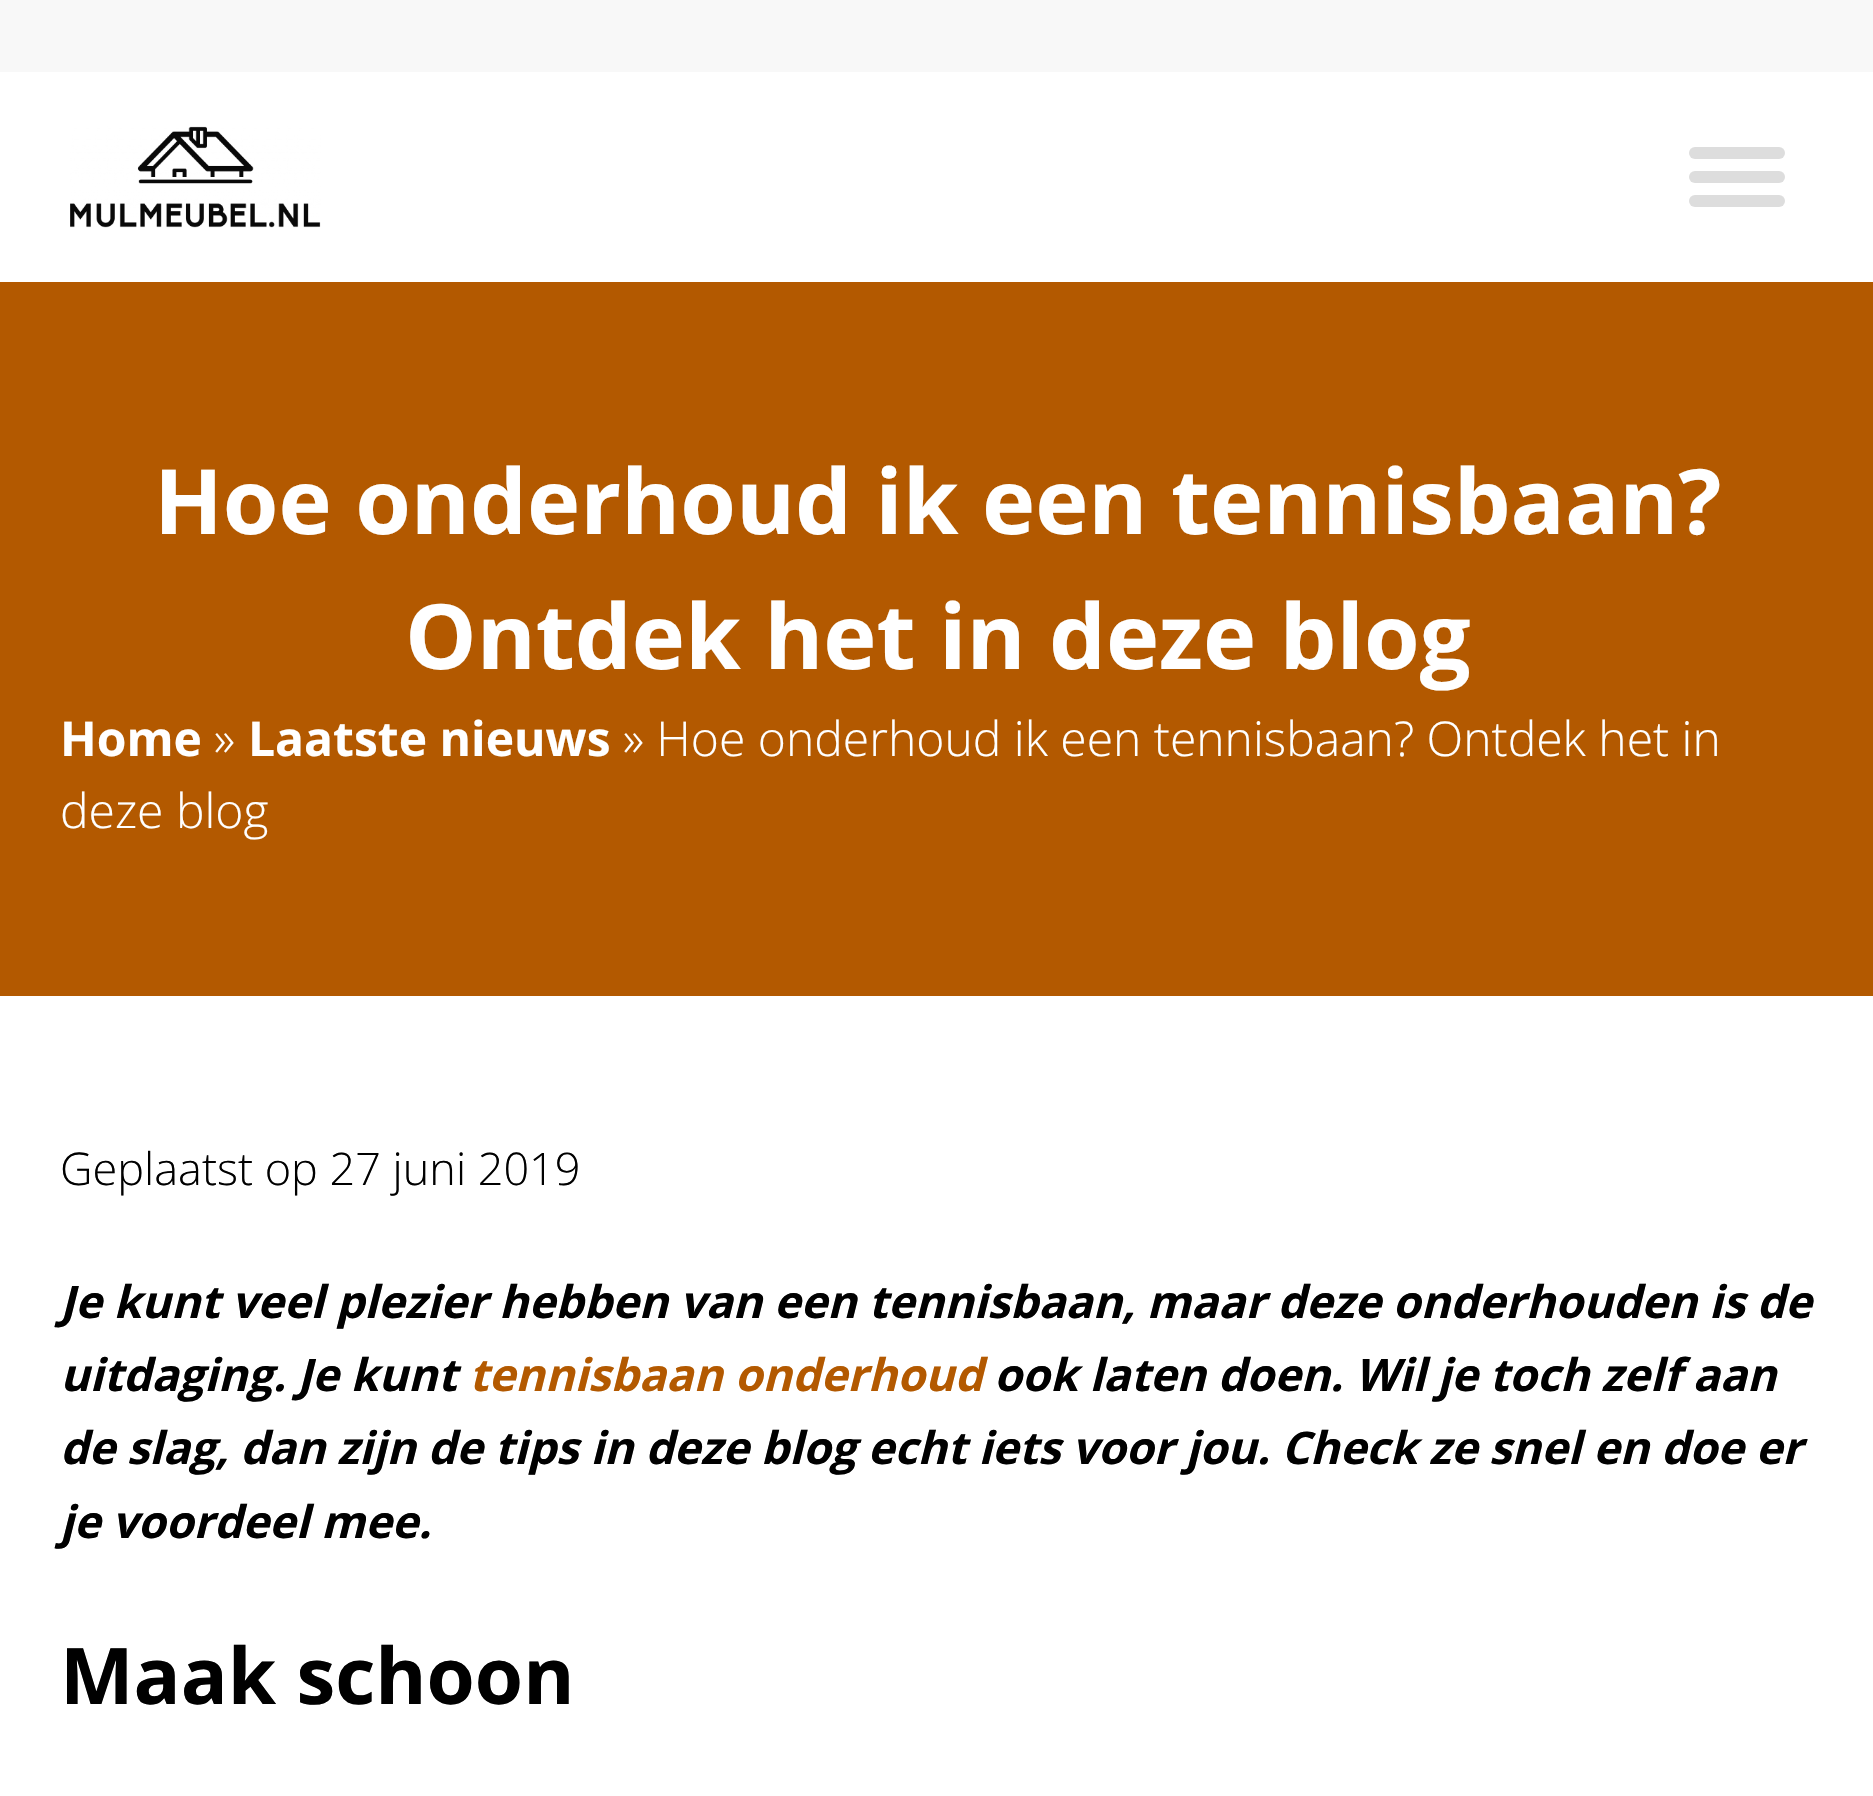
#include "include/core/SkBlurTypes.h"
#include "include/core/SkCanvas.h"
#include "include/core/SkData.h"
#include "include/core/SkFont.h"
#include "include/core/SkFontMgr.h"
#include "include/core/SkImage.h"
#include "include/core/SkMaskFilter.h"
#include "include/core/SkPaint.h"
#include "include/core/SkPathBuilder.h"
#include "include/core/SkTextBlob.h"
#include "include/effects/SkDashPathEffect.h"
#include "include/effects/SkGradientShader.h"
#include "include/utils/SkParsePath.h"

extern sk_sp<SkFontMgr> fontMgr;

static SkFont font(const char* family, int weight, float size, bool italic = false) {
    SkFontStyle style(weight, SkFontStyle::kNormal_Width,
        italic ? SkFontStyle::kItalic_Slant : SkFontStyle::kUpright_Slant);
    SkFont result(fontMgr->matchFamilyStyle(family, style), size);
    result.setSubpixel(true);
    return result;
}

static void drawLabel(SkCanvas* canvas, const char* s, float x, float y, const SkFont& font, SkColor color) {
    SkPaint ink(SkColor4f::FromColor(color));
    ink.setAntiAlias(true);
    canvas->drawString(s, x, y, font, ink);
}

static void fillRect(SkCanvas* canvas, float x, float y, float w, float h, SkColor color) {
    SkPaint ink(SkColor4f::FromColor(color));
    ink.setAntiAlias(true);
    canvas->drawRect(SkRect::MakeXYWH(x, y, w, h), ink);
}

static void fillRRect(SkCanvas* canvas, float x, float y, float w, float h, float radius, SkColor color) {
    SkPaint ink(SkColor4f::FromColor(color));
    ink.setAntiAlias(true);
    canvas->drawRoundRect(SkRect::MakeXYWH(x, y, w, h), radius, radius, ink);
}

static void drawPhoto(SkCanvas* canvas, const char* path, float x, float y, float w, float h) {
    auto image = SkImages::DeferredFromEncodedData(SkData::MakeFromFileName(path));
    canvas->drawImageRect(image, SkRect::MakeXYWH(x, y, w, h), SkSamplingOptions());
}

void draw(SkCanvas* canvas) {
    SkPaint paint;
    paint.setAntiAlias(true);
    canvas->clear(0xFFFFFFFF);
    fillRect(canvas, 0, 0, 1873, 72, 0xFFF8F8F8);
    drawPhoto(canvas, "assets/img1.png", 70, 126, 251, 102);
    fillRRect(canvas, 1689, 147, 96, 12, 6, 0xFFDDDDDD);
    fillRRect(canvas, 1689, 171, 96, 12, 6, 0xFFDDDDDD);
    fillRRect(canvas, 1689, 195, 96, 12, 6, 0xFFDDDDDD);
    fillRect(canvas, 0, 282, 1873, 714, 0xFFB35900);
    SkFont font1 = font("Open Sans", 700, 90);
    drawLabel(canvas, "Hoe onderhoud ik een tennisbaan?", 154, 534, font1, 0xFFFFFFFF);
    drawLabel(canvas, "Ontdek het in deze blog", 405, 669, font1, 0xFFFFFFFF);
    SkFont font2 = font("Open Sans", 700, 48);
    drawLabel(canvas, "Home", 60, 756, font2, 0xFFFFFFFF);
    SkFont font3 = font("Open Sans", 300, 48);
    drawLabel(canvas, "»", 214, 756, font3, 0xFFFFFFFF);
    drawLabel(canvas, "Laatste nieuws", 248, 756, font2, 0xFFFFFFFF);
    drawLabel(canvas, "» Hoe onderhoud ik een tennisbaan? Ontdek het in", 623, 756, font3, 0xFFFFFFFF);
    drawLabel(canvas, "deze blog", 60, 828, font3, 0xFFFFFFFF);
    SkFont font4 = font("Open Sans", 300, 45);
    drawLabel(canvas, "Geplaatst op 27 juni 2019", 60, 1185, font4, 0xFF000000);
    SkFont font5 = font("Open Sans", 700, 45, true);
    drawLabel(canvas, "Je kunt veel plezier hebben van een tennisbaan, maar deze onderhouden is de", 60, 1318, font5, 0xFF000000);
    drawLabel(canvas, "uitdaging. Je kunt", 60, 1391, font5, 0xFF000000);
    drawLabel(canvas, "tennisbaan onderhoud", 469, 1391, font5, 0xFFB35900);
    drawLabel(canvas, "ook laten doen. Wil je toch zelf aan", 994, 1391, font5, 0xFF000000);
    drawLabel(canvas, "de slag, dan zijn de tips in deze blog echt iets voor jou. Check ze snel en doe er", 60, 1464, font5, 0xFF000000);
    drawLabel(canvas, "je voordeel mee.", 60, 1538, font5, 0xFF000000);
    SkFont font6 = font("Open Sans", 700, 78);
    drawLabel(canvas, "Maak schoon", 60, 1704, font6, 0xFF000000);
}
